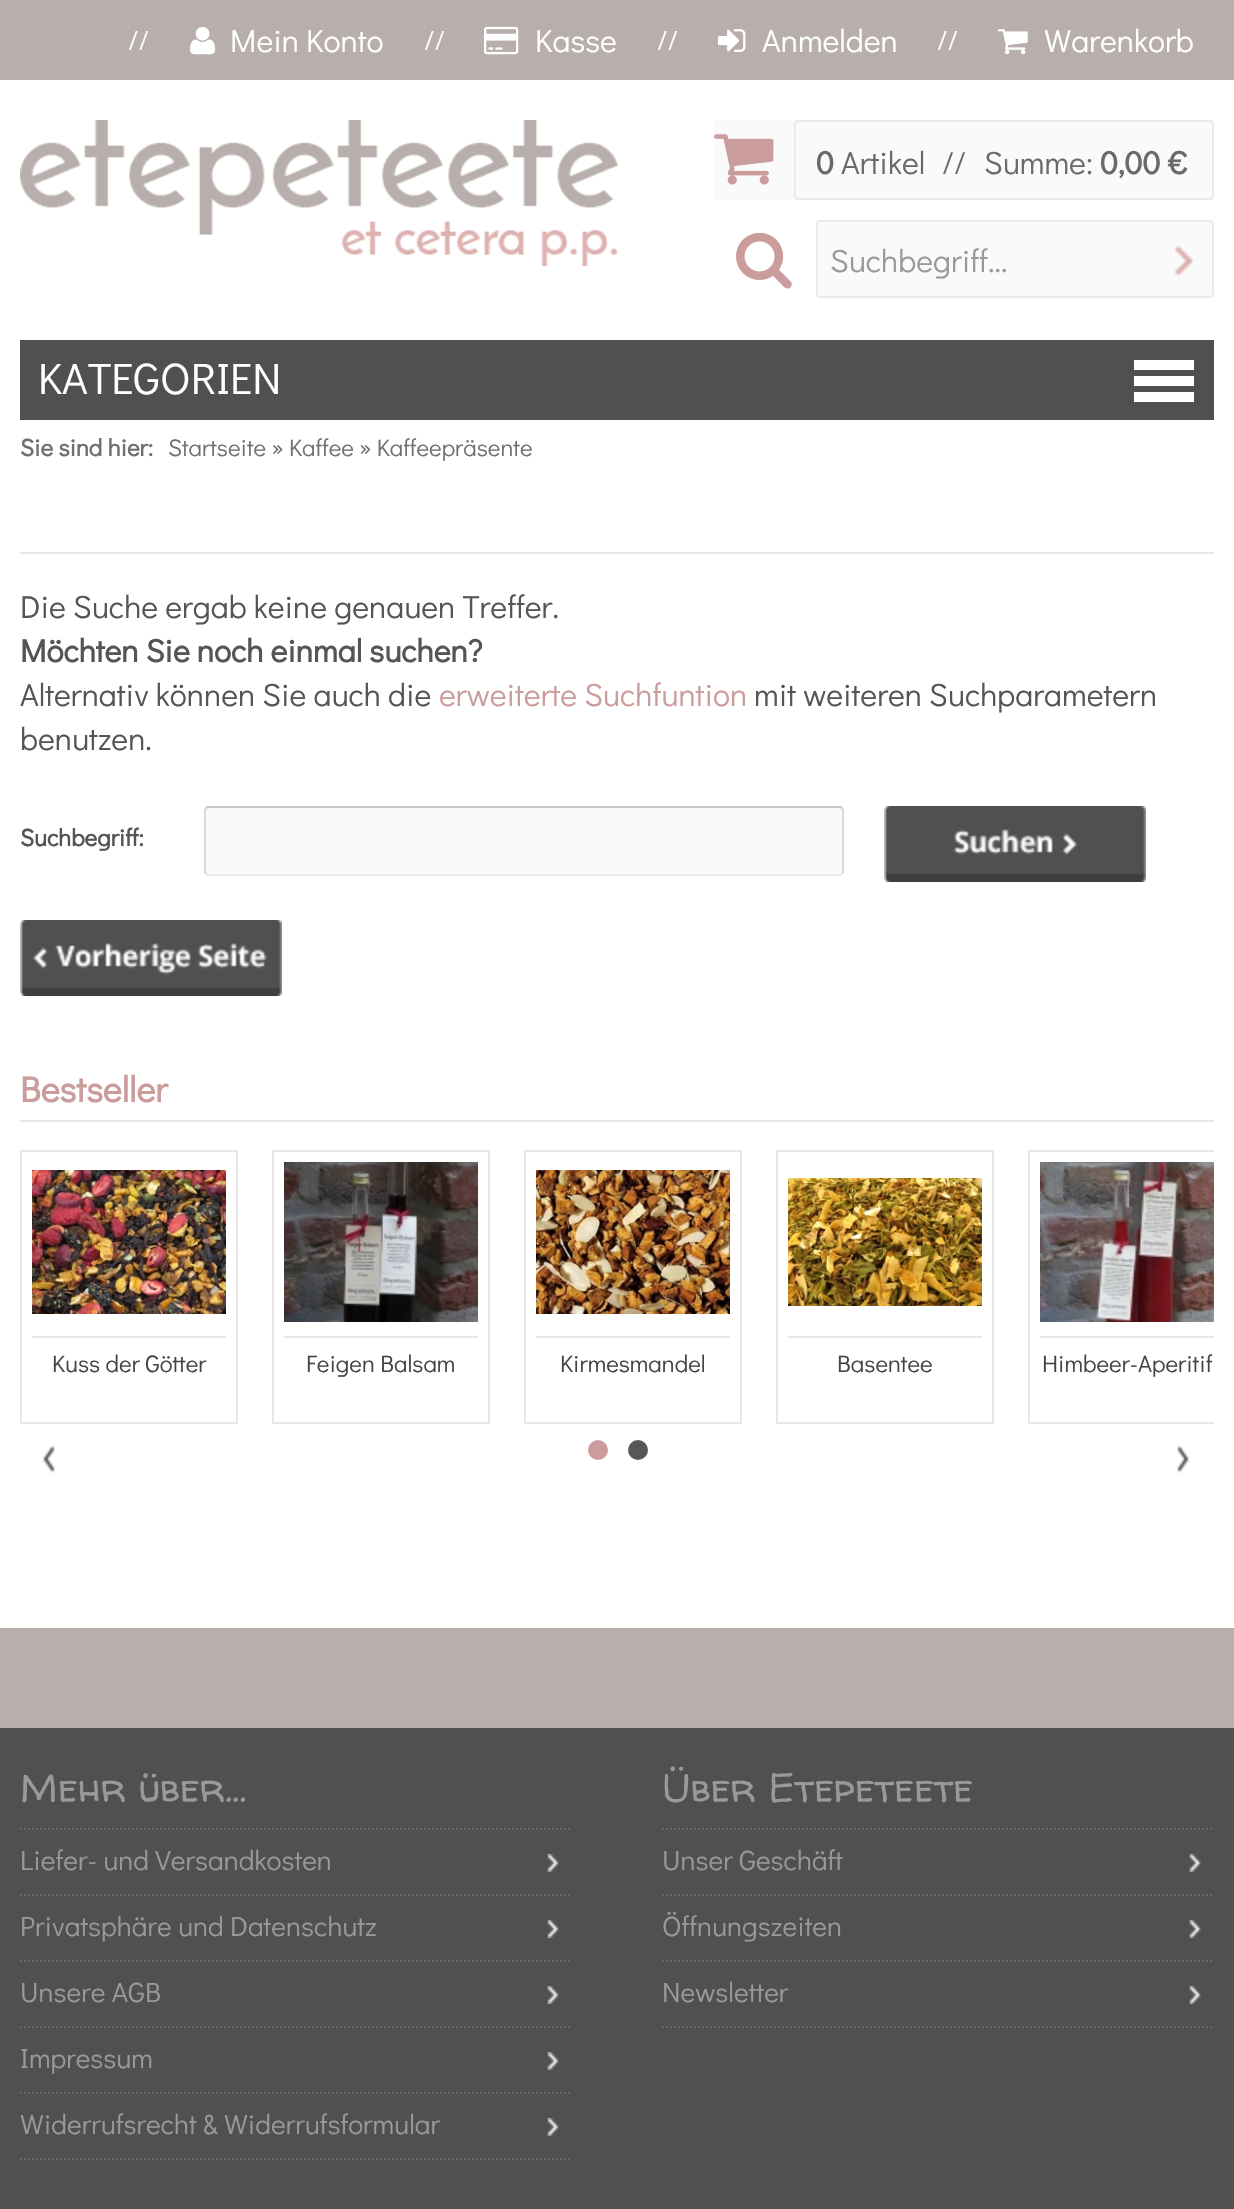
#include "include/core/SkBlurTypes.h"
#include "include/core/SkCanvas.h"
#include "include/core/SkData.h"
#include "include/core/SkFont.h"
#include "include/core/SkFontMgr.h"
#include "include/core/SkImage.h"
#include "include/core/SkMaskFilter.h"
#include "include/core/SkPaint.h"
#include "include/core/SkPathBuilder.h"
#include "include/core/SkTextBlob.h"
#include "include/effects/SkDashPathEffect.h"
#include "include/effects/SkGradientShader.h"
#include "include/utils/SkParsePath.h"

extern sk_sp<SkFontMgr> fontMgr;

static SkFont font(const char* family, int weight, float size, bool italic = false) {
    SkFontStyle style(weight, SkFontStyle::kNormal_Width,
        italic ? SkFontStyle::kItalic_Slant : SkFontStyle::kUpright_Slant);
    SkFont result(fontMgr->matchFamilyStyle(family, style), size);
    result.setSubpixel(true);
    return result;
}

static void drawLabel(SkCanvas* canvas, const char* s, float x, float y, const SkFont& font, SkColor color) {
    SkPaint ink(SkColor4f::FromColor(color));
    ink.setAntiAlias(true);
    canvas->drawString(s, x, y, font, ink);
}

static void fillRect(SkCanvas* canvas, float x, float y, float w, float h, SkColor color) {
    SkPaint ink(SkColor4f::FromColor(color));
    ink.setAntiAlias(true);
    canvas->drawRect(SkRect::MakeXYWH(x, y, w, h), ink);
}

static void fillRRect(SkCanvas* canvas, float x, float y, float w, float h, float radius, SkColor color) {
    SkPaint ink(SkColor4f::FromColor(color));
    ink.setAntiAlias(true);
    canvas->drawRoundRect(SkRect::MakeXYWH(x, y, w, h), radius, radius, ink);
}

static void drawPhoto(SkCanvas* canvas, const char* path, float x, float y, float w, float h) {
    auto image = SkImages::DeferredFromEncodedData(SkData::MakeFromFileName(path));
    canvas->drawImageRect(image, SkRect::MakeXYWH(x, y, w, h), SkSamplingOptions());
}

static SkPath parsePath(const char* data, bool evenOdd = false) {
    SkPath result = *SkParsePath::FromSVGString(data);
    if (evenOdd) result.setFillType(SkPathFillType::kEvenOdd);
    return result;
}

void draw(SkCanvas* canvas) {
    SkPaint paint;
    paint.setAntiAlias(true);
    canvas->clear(0xFFFFFFFF);
    fillRect(canvas, 0, 0, 1234, 80, 0xFFB8AEAC);
    SkFont font1 = font("Didact Gothic", 400, 28);
    drawLabel(canvas, "//", 128, 50, font1, 0xFFFFFFFF);
    drawPhoto(canvas, "assets/img1.png", 190, 26, 26, 29);
    SkFont font2 = font("Didact Gothic", 400, 32);
    drawLabel(canvas, "Mein Konto", 230, 52, font2, 0xFFFFFFFF);
    drawLabel(canvas, "//", 424, 50, font1, 0xFFFFFFFF);
    drawPhoto(canvas, "assets/img2.png", 484, 26, 35, 29);
    drawLabel(canvas, "Kasse", 535, 52, font2, 0xFFFFFFFF);
    drawLabel(canvas, "//", 657, 50, font1, 0xFFFFFFFF);
    drawPhoto(canvas, "assets/img3.png", 718, 29, 28, 23);
    drawLabel(canvas, "Anmelden", 762, 52, font2, 0xFFFFFFFF);
    drawLabel(canvas, "//", 937, 50, font1, 0xFFFFFFFF);
    drawPhoto(canvas, "assets/img4.png", 998, 29, 30, 26);
    drawLabel(canvas, "Warenkorb", 1044, 52, font2, 0xFFFFFFFF);
    drawPhoto(canvas, "assets/img5.png", 20, 120, 598, 146);
    fillRect(canvas, 714, 120, 500, 80, 0xFFFAFAFA);
    drawPhoto(canvas, "assets/img6.png", 714, 134, 60, 51);
    paint.setStroke(true);
    paint.setStrokeWidth(2);
    paint.setColor(0xFFEAEAEA);
    canvas->drawRoundRect(SkRect::MakeXYWH(795, 121, 418, 78), 3, 3, paint);
    SkFont font3 = font("Didact Gothic", 700, 32);
    drawLabel(canvas, "0", 816, 174, font3, 0xFF6D6969);
    drawLabel(canvas, "Artikel", 841, 174, font2, 0xFF6D6969);
    drawLabel(canvas, "//", 942, 174, font2, 0xFF6D6969);
    drawLabel(canvas, "Summe:", 984, 174, font2, 0xFF6D6969);
    drawLabel(canvas, "0,00 €", 1100, 174, font3, 0xFF6D6969);
    drawPhoto(canvas, "assets/img7.png", 736, 232, 56, 57);
    paint.setStroke(false);
    paint.setColor(0xFFFAFAFA);
    canvas->drawRoundRect(SkRect::MakeXYWH(817, 221, 396, 76), 3, 3, paint);
    paint.setStroke(true);
    paint.setColor(0xFFEAEAEA);
    canvas->drawRoundRect(SkRect::MakeXYWH(817, 221, 396, 76), 3, 3, paint);
    drawLabel(canvas, "Suchbegriff...", 830, 272, font2, 0xFF999999);
    drawPhoto(canvas, "assets/img8.png", 1174, 245, 20, 31);
    fillRect(canvas, 20, 340, 1194, 80, 0xFF524F4F);
    SkFont font4 = font("Didact Gothic", 400, 44);
    drawLabel(canvas, "KATEGORIEN", 38, 394, font4, 0xFFFFFFFF);
    fillRect(canvas, 1134, 360, 60, 10, 0xFFFFFFFF);
    fillRect(canvas, 1134, 376, 60, 10, 0xFFFFFFFF);
    fillRect(canvas, 1134, 392, 60, 10, 0xFFFFFFFF);
    SkFont font5 = font("Didact Gothic", 700, 24);
    drawLabel(canvas, "Sie sind hier:", 20, 456, font5, 0xFF736F6F);
    SkFont font6 = font("Didact Gothic", 400, 24);
    drawLabel(canvas, "Startseite » Kaffee » Kaffeepräsente", 168, 456, font6, 0xFF736F6F);
    fillRect(canvas, 20, 552, 1194, 2, 0xFFEAE7E6);
    drawLabel(canvas, "Die Suche ergab keine genauen Treffer.", 20, 618, font2, 0xFF555555);
    drawLabel(canvas, "Möchten Sie noch einmal suchen?", 20, 662, font3, 0xFF555555);
    drawLabel(canvas, "Alternativ können Sie auch die", 20, 706, font2, 0xFF555555);
    drawLabel(canvas, "erweiterte Suchfuntion", 439, 706, font2, 0xFFCA9C9B);
    drawLabel(canvas, "mit weiteren Suchparametern", 754, 706, font2, 0xFF555555);
    drawLabel(canvas, "benutzen.", 20, 750, font2, 0xFF555555);
    drawLabel(canvas, "Suchbegriff:", 20, 846, font5, 0xFF555555);
    fillRRect(canvas, 204, 806, 640, 70, 4, 0xFFFAFAFA);
    paint.setColor(0xFFC6C6C6);
    canvas->drawPath(parsePath("M206 808L208 807H840L842 808"), paint);
    paint.setColor(0xFFDADADA);
    canvas->drawPath(parsePath("M842 808L843 810V872L842 874"), paint);
    paint.setColor(0xFFEAEAEA);
    canvas->drawPath(parsePath("M842 874L840 875H208L206 874"), paint);
    paint.setColor(0xFFDADADA);
    canvas->drawPath(parsePath("M206 874L205 872V810L206 808"), paint);
    drawPhoto(canvas, "assets/img9.png", 884, 806, 262, 76);
    drawPhoto(canvas, "assets/img10.png", 20, 920, 262, 76);
    fillRect(canvas, 20, 1120, 1194, 2, 0xFFEAE7E6);
    SkFont font7 = font("Didact Gothic", 700, 36);
    drawLabel(canvas, "Bestseller", 20, 1102, font7, 0xFFCA9C9B);
    paint.setColor(0xFFEAE7E6);
    canvas->drawRect(SkRect::MakeXYWH(21, 1151, 216, 272), paint);
    drawPhoto(canvas, "assets/img11.png", 32, 1170, 194, 144);
    fillRect(canvas, 32, 1336, 194, 2, 0xFFEAE7E6);
    drawLabel(canvas, "Kuss der Götter", 52, 1372, font6, 0xFF444444);
    canvas->drawRect(SkRect::MakeXYWH(273, 1151, 216, 272), paint);
    drawPhoto(canvas, "assets/img12.png", 284, 1162, 194, 160);
    fillRect(canvas, 284, 1336, 194, 2, 0xFFEAE7E6);
    drawLabel(canvas, "Feigen Balsam", 306, 1372, font6, 0xFF444444);
    canvas->drawRect(SkRect::MakeXYWH(525, 1151, 216, 272), paint);
    drawPhoto(canvas, "assets/img13.png", 536, 1170, 194, 144);
    fillRect(canvas, 536, 1336, 194, 2, 0xFFEAE7E6);
    drawLabel(canvas, "Kirmesmandel", 560, 1372, font6, 0xFF444444);
    canvas->drawRect(SkRect::MakeXYWH(777, 1151, 216, 272), paint);
    drawPhoto(canvas, "assets/img14.png", 788, 1178, 194, 128);
    fillRect(canvas, 788, 1336, 194, 2, 0xFFEAE7E6);
    drawLabel(canvas, "Basentee", 837, 1372, font6, 0xFF444444);
    canvas->save();
    canvas->clipRect(SkRect::MakeXYWH(20, 1150, 1194, 274));
    canvas->drawRect(SkRect::MakeXYWH(1029, 1151, 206, 272), paint);
    canvas->restore();
    drawPhoto(canvas, "assets/img15.png", 1040, 1162, 174, 160);
    fillRect(canvas, 1040, 1336, 174, 2, 0xFFEAE7E6);
    drawLabel(canvas, "Himbeer-Aperitif", 1042, 1372, font6, 0xFF444444);
    paint.setStroke(false);
    paint.setColor(0xFFCA9C9B);
    canvas->drawCircle(598, 1450, 10, paint);
    paint.setColor(0xFF575757);
    canvas->drawCircle(638, 1450, 10, paint);
    drawPhoto(canvas, "assets/img16.png", 43, 1445, 12, 28);
    drawPhoto(canvas, "assets/img17.png", 1177, 1445, 12, 28);
    fillRect(canvas, 0, 1628, 1234, 100, 0xFFB8AEAC);
    fillRect(canvas, 0, 1728, 1234, 481, 0xFF524F4F);
    SkFont font8 = font("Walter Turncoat", 400, 40);
    drawLabel(canvas, "Mehr über...", 20, 1802, font8, 0xFF999999);
    paint.setStroke(true);
    paint.setColor(0xFF6A6666);
    paint.setPathEffect(SkDashPathEffect::Make({{2, 2}}, 0));
    canvas->drawPath(parsePath("M20 1829H572"), paint);
    paint.setPathEffect(nullptr);
    drawPhoto(canvas, "assets/img18.png", 547, 1854, 12, 18);
    paint.setPathEffect(SkDashPathEffect::Make({{2, 2}}, 0));
    canvas->drawPath(parsePath("M20 1895H572"), paint);
    paint.setPathEffect(nullptr);
    drawLabel(canvas, "Liefer- und Versandkosten", 20, 1870, font1, 0xFF999999);
    drawPhoto(canvas, "assets/img18.png", 547, 1920, 12, 18);
    paint.setPathEffect(SkDashPathEffect::Make({{2, 2}}, 0));
    canvas->drawPath(parsePath("M20 1961H572"), paint);
    paint.setPathEffect(nullptr);
    drawLabel(canvas, "Privatsphäre und Datenschutz", 20, 1936, font1, 0xFF999999);
    drawPhoto(canvas, "assets/img18.png", 547, 1986, 12, 18);
    paint.setPathEffect(SkDashPathEffect::Make({{2, 2}}, 0));
    canvas->drawPath(parsePath("M20 2027H572"), paint);
    paint.setPathEffect(nullptr);
    drawLabel(canvas, "Unsere AGB", 20, 2002, font1, 0xFF999999);
    drawPhoto(canvas, "assets/img18.png", 547, 2052, 12, 18);
    paint.setPathEffect(SkDashPathEffect::Make({{2, 2}}, 0));
    canvas->drawPath(parsePath("M20 2093H572"), paint);
    paint.setPathEffect(nullptr);
    drawLabel(canvas, "Impressum", 20, 2068, font1, 0xFF999999);
    drawPhoto(canvas, "assets/img18.png", 547, 2118, 12, 18);
    paint.setPathEffect(SkDashPathEffect::Make({{2, 2}}, 0));
    canvas->drawPath(parsePath("M20 2159H572"), paint);
    paint.setPathEffect(nullptr);
    drawLabel(canvas, "Widerrufsrecht & Widerrufsformular", 20, 2134, font1, 0xFF999999);
    drawLabel(canvas, "Über Etepeteete", 662, 1802, font8, 0xFF999999);
    paint.setPathEffect(SkDashPathEffect::Make({{2, 2}}, 0));
    canvas->drawPath(parsePath("M662 1829H1214"), paint);
    paint.setPathEffect(nullptr);
    drawPhoto(canvas, "assets/img18.png", 1189, 1854, 12, 18);
    paint.setPathEffect(SkDashPathEffect::Make({{2, 2}}, 0));
    canvas->drawPath(parsePath("M662 1895H1214"), paint);
    paint.setPathEffect(nullptr);
    drawLabel(canvas, "Unser Geschäft", 662, 1870, font1, 0xFF999999);
    drawPhoto(canvas, "assets/img18.png", 1189, 1920, 12, 18);
    paint.setPathEffect(SkDashPathEffect::Make({{2, 2}}, 0));
    canvas->drawPath(parsePath("M662 1961H1214"), paint);
    paint.setPathEffect(nullptr);
    drawLabel(canvas, "Öffnungszeiten", 662, 1936, font1, 0xFF999999);
    drawPhoto(canvas, "assets/img18.png", 1189, 1986, 12, 18);
    paint.setPathEffect(SkDashPathEffect::Make({{2, 2}}, 0));
    canvas->drawPath(parsePath("M662 2027H1214"), paint);
    paint.setPathEffect(nullptr);
    drawLabel(canvas, "Newsletter", 662, 2002, font1, 0xFF999999);
}
